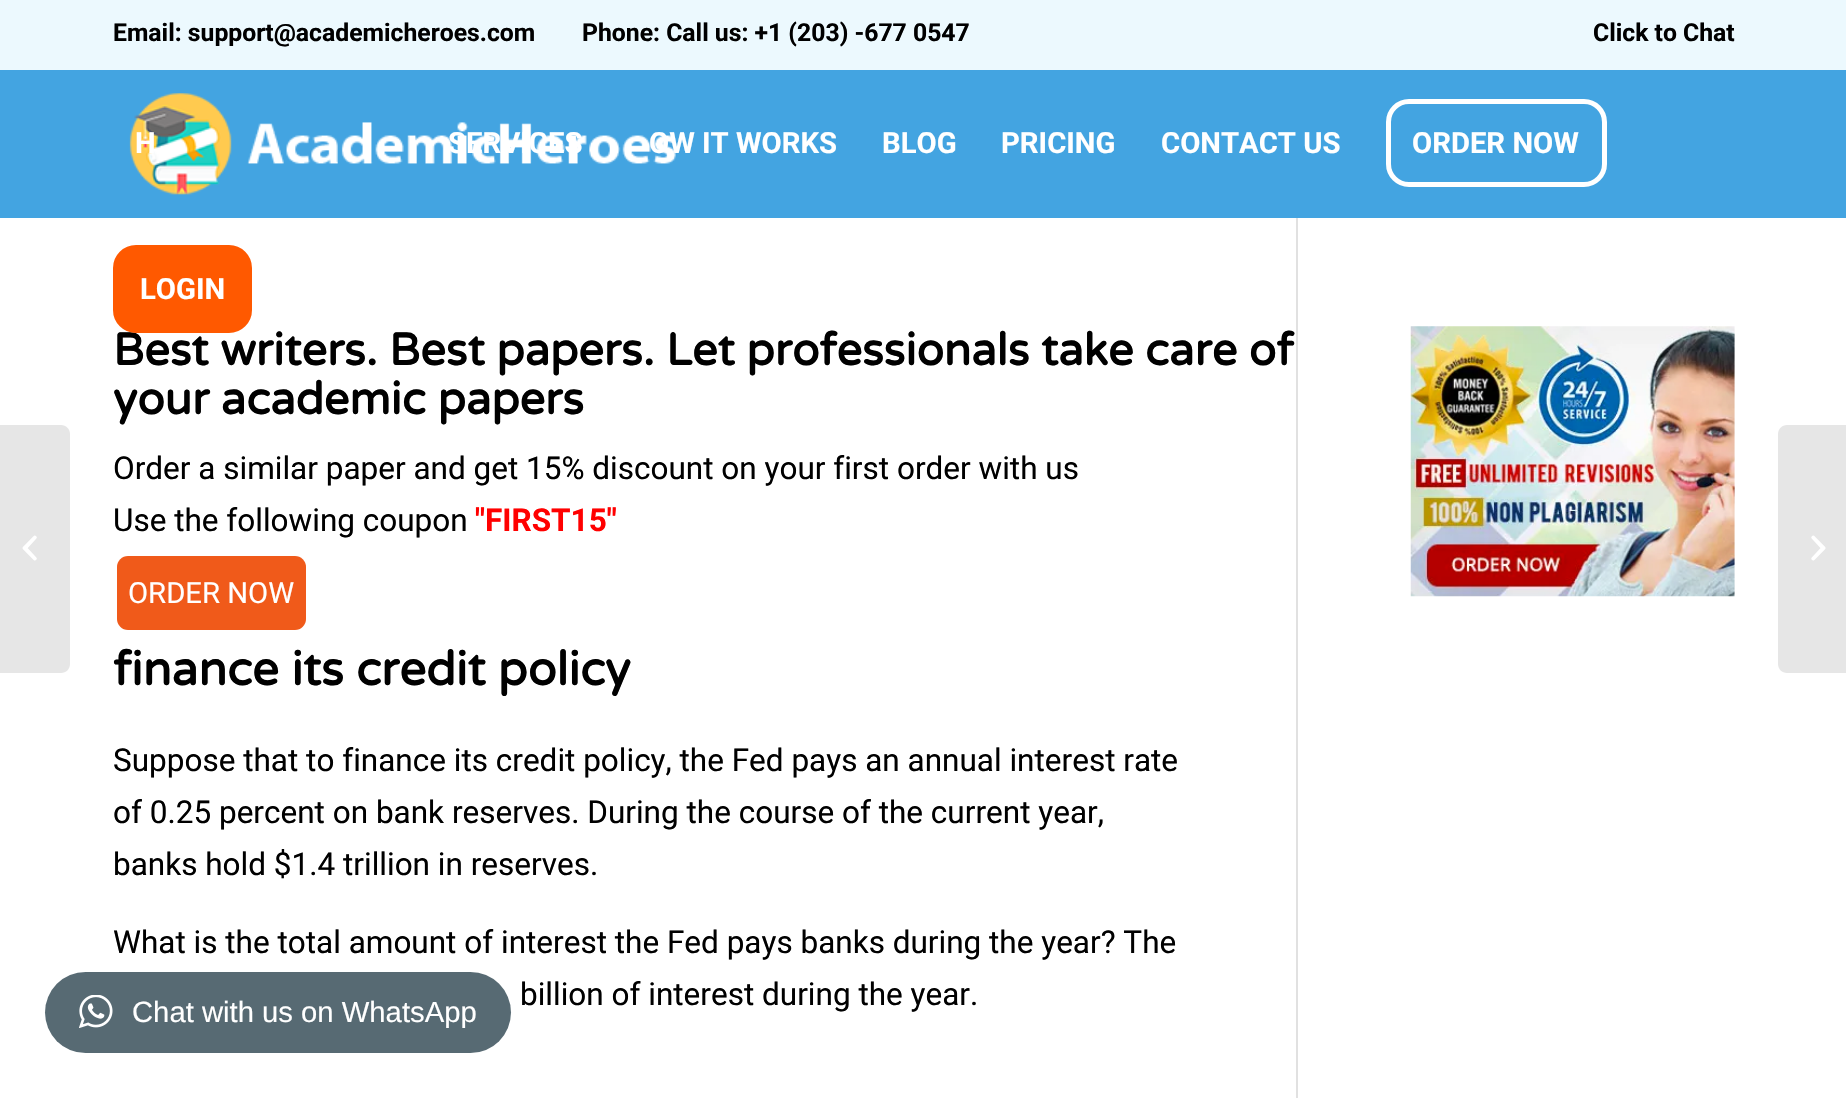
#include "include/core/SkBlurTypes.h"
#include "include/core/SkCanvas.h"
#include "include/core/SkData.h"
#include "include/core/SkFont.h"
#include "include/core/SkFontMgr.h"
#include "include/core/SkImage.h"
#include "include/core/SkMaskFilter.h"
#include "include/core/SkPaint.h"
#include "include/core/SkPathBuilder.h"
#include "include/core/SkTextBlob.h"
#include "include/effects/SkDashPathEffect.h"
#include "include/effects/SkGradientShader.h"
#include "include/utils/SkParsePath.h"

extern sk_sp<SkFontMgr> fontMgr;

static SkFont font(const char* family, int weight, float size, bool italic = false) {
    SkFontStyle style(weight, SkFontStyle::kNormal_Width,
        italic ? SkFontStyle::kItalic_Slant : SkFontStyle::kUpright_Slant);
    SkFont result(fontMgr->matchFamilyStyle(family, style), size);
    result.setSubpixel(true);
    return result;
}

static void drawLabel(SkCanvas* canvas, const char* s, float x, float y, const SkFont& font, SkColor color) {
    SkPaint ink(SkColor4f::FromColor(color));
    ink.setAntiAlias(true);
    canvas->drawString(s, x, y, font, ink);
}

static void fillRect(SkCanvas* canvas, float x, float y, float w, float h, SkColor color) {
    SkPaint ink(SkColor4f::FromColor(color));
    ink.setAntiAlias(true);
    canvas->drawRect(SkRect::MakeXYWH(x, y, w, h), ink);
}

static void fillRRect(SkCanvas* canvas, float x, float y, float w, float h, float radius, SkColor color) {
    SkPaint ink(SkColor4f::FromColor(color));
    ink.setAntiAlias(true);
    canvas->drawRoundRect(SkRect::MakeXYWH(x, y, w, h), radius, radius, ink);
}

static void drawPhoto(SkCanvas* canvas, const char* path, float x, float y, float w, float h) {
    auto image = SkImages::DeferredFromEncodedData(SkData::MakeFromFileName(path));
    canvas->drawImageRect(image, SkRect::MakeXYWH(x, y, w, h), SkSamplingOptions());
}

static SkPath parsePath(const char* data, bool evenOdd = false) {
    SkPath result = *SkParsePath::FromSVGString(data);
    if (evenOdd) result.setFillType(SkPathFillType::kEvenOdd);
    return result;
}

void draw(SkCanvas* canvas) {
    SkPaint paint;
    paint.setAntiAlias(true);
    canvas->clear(0xFFFFFFFF);
    fillRect(canvas, 0, 0, 1846, 70, 0xFFECF9FE);
    SkFont font1 = font("Roboto", 700, 24.75f);
    drawLabel(canvas, "Email: support@academicheroes.com", 113, 41, font1, 0xFF000000);
    drawLabel(canvas, "Phone: Call us: +1 (203) -677 0547", 582, 41, font1, 0xFF000000);
    drawLabel(canvas, "Click to Chat", 1593, 41, font1, 0xFF000000);
    fillRect(canvas, 1296, 214, 2, 884, 0xFFE1E1E1);
    fillRect(canvas, 0, 70, 1846, 148, 0xFF43A4E1);
    drawPhoto(canvas, "assets/img1.png", 129, 93, 547, 102);
    SkFont font2 = font("Roboto", 700, 29.25f);
    drawLabel(canvas, "H", 135, 153, font2, 0xFFFFFFFF);
    drawLabel(canvas, "SERVICES", 448, 153, font2, 0xFFFFFFFF);
    drawLabel(canvas, "OW IT WORKS", 649, 153, font2, 0xFFFFFFFF);
    drawLabel(canvas, "BLOG", 882, 153, font2, 0xFFFFFFFF);
    drawLabel(canvas, "PRICING", 1001, 153, font2, 0xFFFFFFFF);
    drawLabel(canvas, "CONTACT US", 1161, 153, font2, 0xFFFFFFFF);
    paint.setStroke(true);
    paint.setStrokeWidth(5);
    paint.setColor(0xFFFFFFFF);
    canvas->drawRoundRect(SkRect::MakeXYWH(1388.5f, 101.5f, 216, 83), 20.5f, 20.5f, paint);
    drawLabel(canvas, "ORDER NOW", 1412, 153, font2, 0xFFFFFFFF);
    SkFont font3 = font("Varela Round", 700, 45);
    drawLabel(canvas, "Best writers. Best papers. Let professionals take care of", 113, 365, font3, 0xFF000000);
    paint.setStroke(false);
    paint.setColor(0xFFFF5900);
    canvas->drawRoundRect(SkRect::MakeXYWH(115.5f, 247.5f, 134, 83), 20.5f, 20.5f, paint);
    paint.setStroke(true);
    canvas->drawRoundRect(SkRect::MakeXYWH(115.5f, 247.5f, 134, 83), 20.5f, 20.5f, paint);
    drawLabel(canvas, "LOGIN", 140, 299, font2, 0xFFFFFFFF);
    paint.setStroke(false);
    paint.setColor(0xFFE6E6E6);
    canvas->drawPath(parsePath("M0 425H61C66 425 70 429 70 434V664C70 669 66 673 61 673H0Z"), paint);
    drawPhoto(canvas, "assets/img2.png", 22, 535, 15, 26);
    drawLabel(canvas, "your academic papers", 113, 414, font3, 0xFF000000);
    SkFont font4 = font("Roboto", 400, 31.5f);
    drawLabel(canvas, "Order a similar paper and get 15% discount on your first order with us", 113, 479, font4, 0xFF000000);
    drawLabel(canvas, "Use the following coupon", 113, 531, font4, 0xFF000000);
    SkFont font5 = font("Roboto", 700, 31.5f);
    drawLabel(canvas, "\"FIRST15\"", 475, 531, font5, 0xFFFF0000);
    fillRRect(canvas, 117, 556, 189, 74, 11, 0xFFF05A1A);
    SkFont font6 = font("Roboto", 400, 29.25f);
    drawLabel(canvas, "ORDER NOW", 128, 603, font6, 0xFFFFFFFF);
    SkFont font7 = font("Varela Round", 700, 47.25f);
    drawLabel(canvas, "finance its credit policy", 113, 685, font7, 0xFF000000);
    drawLabel(canvas, "Suppose that to finance its credit policy, the Fed pays an annual interest rate", 113, 771, font4, 0xFF000000);
    drawLabel(canvas, "of 0.25 percent on bank reserves. During the course of the current year,", 113, 823, font4, 0xFF000000);
    drawLabel(canvas, "banks hold $1.4 trillion in reserves.", 113, 875, font4, 0xFF000000);
    drawLabel(canvas, "What is the total amount of interest the Fed pays banks during the year? The", 113, 953, font4, 0xFF000000);
    drawLabel(canvas, "billion of interest during the year.", 520, 1005, font4, 0xFF000000);
    drawPhoto(canvas, "assets/img3.png", 1410, 326, 325, 271);
    canvas->drawPath(parsePath("M1787 425H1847V673H1787C1782 673 1778 669 1778 664V434C1778 429 1782 425 1787 425Z"), paint);
    drawPhoto(canvas, "assets/img4.png", 1811, 535, 15, 26);
    fillRRect(canvas, 45, 972, 466, 81, 40.5f, 0xE6455A64);
    drawPhoto(canvas, "assets/img5.png", 79, 995, 34, 33);
    SkFont font8 = font("Liberation Sans", 400, 29.25f);
    drawLabel(canvas, "Chat with us on WhatsApp", 132, 1022, font8, 0xFFFFFFFF);
}
